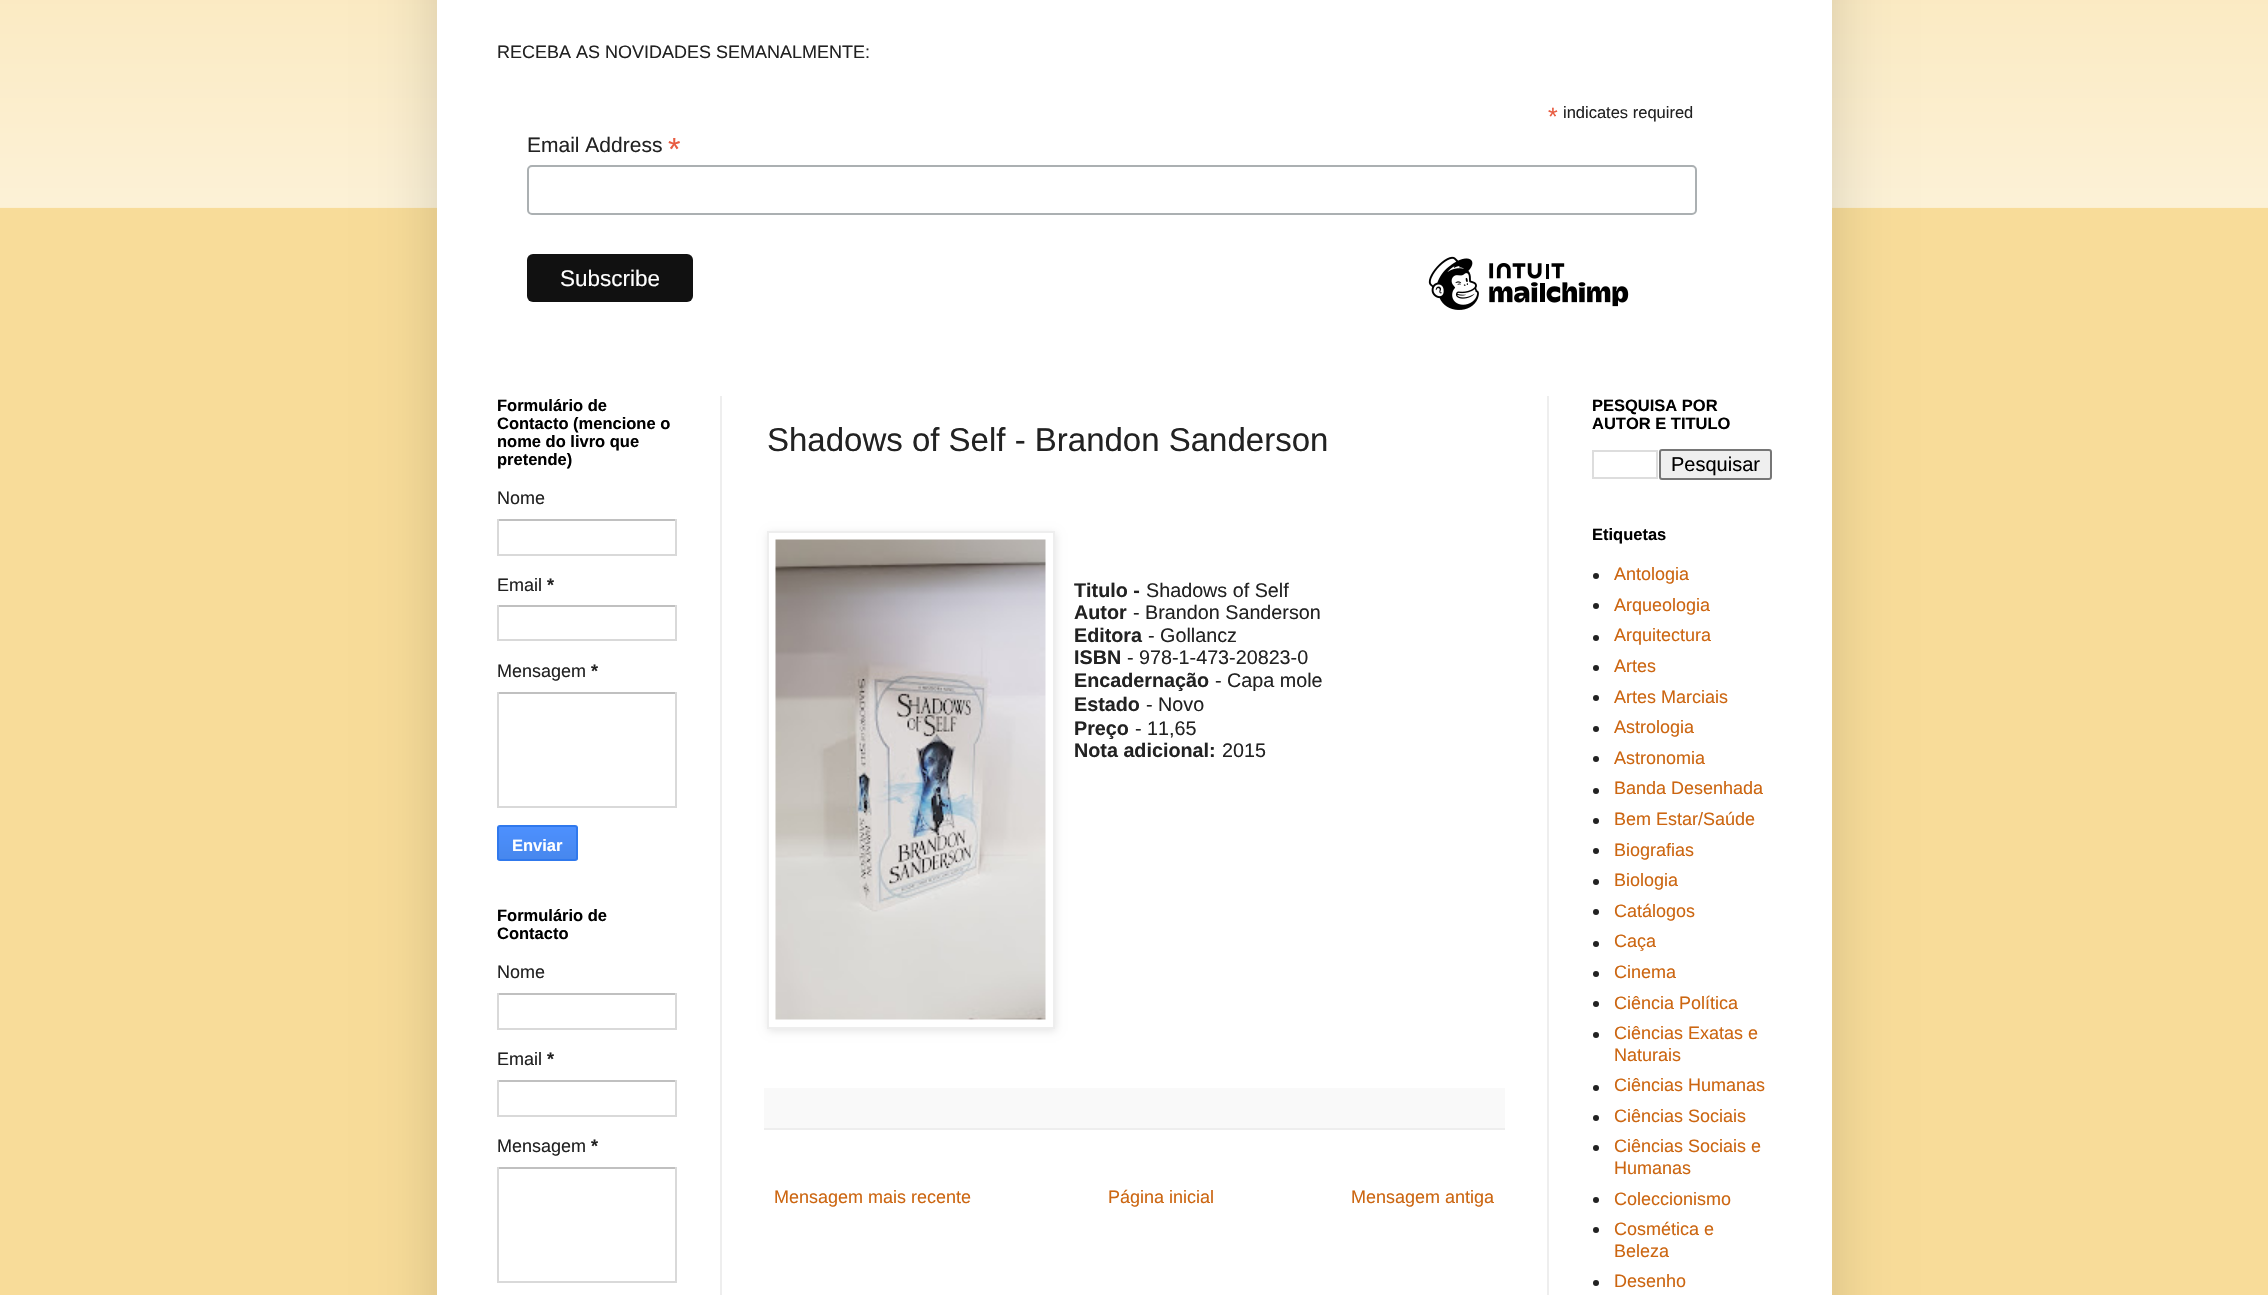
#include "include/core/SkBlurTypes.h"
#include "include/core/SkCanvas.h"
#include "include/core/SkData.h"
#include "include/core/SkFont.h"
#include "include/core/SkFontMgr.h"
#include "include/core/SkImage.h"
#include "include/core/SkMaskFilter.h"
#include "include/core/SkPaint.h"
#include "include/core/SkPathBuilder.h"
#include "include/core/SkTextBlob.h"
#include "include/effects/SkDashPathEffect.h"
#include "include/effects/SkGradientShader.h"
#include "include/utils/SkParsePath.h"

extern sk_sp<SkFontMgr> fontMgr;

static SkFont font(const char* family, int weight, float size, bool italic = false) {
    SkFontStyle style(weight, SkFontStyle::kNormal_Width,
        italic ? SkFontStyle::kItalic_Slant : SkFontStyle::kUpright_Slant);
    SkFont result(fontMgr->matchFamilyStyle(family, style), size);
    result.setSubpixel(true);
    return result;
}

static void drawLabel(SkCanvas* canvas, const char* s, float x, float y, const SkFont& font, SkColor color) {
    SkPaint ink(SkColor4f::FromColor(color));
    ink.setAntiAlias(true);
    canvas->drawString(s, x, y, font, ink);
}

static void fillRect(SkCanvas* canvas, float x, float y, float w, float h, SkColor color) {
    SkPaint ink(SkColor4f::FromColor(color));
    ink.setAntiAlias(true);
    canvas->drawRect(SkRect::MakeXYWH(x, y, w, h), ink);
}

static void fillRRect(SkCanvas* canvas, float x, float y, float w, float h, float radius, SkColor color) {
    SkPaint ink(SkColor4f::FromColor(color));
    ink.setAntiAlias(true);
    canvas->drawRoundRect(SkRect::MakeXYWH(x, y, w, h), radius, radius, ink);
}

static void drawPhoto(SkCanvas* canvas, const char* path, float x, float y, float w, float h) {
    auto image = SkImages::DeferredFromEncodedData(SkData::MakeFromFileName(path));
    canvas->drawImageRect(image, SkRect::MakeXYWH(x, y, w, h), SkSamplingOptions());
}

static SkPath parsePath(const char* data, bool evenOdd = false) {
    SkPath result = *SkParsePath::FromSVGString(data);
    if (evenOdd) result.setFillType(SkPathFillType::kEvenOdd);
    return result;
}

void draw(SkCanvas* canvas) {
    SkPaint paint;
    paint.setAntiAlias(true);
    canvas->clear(0xFFF8DC99);
    drawPhoto(canvas, "assets/img1.png", 0, 0, 2268, 208);
    paint.setColor(0x26000000);
    paint.setMaskFilter(SkMaskFilter::MakeBlur(kNormal_SkBlurStyle, 30));
    canvas->drawRect(SkRect::MakeXYWH(437, -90, 1395, 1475), paint);
    paint.setMaskFilter(nullptr);
    fillRect(canvas, 437, 0, 1395, 1295, 0xFFFFFFFF);
    SkFont font1 = font("Liberation Sans", 400, 18);
    drawLabel(canvas, "RECEBA AS NOVIDADES SEMANALMENTE:", 497, 58, font1, 0xFF222222);
    SkFont font2 = font("Liberation Sans", 400, 25);
    drawLabel(canvas, "*", 1548, 125, font2, 0xFFE85C41);
    SkFont font3 = font("Liberation Sans", 400, 16.5f);
    drawLabel(canvas, "indicates required", 1563, 118, font3, 0xFF222222);
    SkFont font4 = font("Liberation Sans", 400, 21);
    drawLabel(canvas, "Email Address", 527, 152, font4, 0xFF222222);
    SkFont font5 = font("Liberation Sans", 400, 32);
    drawLabel(canvas, "*", 668, 160, font5, 0xFFE85C41);
    paint.setStroke(true);
    paint.setStrokeWidth(2);
    paint.setColor(0xFFABB0B2);
    canvas->drawRoundRect(SkRect::MakeXYWH(528, 166, 1168, 48), 4, 4, paint);
    fillRRect(canvas, 527, 254, 166, 48, 6, 0xFF111111);
    SkFont font6 = font("Liberation Sans", 400, 22.5f);
    drawLabel(canvas, "Subscribe", 560, 286, font6, 0xFFFFFFFF);
    drawPhoto(canvas, "assets/img2.png", 1428, 256, 201, 54);
    fillRect(canvas, 720, 396, 2, 899, 0xFFEEEEEE);
    fillRect(canvas, 1547, 396, 2, 899, 0xFFEEEEEE);
    SkFont font7 = font("Liberation Sans", 700, 16.5f);
    drawLabel(canvas, "Formulário de", 497, 411, font7, 0xFF000000);
    drawLabel(canvas, "Contacto (mencione o", 497, 429, font7, 0xFF000000);
    drawLabel(canvas, "nome do livro que", 497, 447, font7, 0xFF000000);
    drawLabel(canvas, "pretende)", 497, 465, font7, 0xFF000000);
    drawLabel(canvas, "Nome", 497, 504, font1, 0xFF222222);
    fillRect(canvas, 497, 519, 180, 2, 0xFFC0C0C0);
    fillRect(canvas, 675, 519, 2, 36, 0xFFD9D9D9);
    fillRect(canvas, 497, 554, 180, 2, 0xFFD9D9D9);
    fillRect(canvas, 497, 519, 2, 36, 0xFFD9D9D9);
    drawLabel(canvas, "Email", 497, 591, font1, 0xFF222222);
    SkFont font8 = font("Liberation Sans", 700, 18);
    drawLabel(canvas, "*", 547, 591, font8, 0xFF222222);
    fillRect(canvas, 497, 605, 180, 2, 0xFFC0C0C0);
    fillRect(canvas, 675, 605, 2, 36, 0xFFD9D9D9);
    fillRect(canvas, 497, 639, 180, 2, 0xFFD9D9D9);
    fillRect(canvas, 497, 605, 2, 36, 0xFFD9D9D9);
    drawLabel(canvas, "Mensagem", 497, 677, font1, 0xFF222222);
    drawLabel(canvas, "*", 591, 677, font8, 0xFF222222);
    fillRect(canvas, 497, 692, 180, 2, 0xFFC0C0C0);
    fillRect(canvas, 675, 692, 2, 115, 0xFFD9D9D9);
    fillRect(canvas, 497, 806, 180, 2, 0xFFD9D9D9);
    fillRect(canvas, 497, 692, 2, 115, 0xFFD9D9D9);
    canvas->save();
    canvas->clipPath(parsePath("M500 825H575C576.5 825 578 826.5 578 828V858C578 859.5 576.5 861 575 861H500C498.5 861 497 859.5 497 858V828C497 826.5 498.5 825 500 825Z"), true);
    paint.setStroke(false);
    {
        const SkColor colors[] = {0xFF4D90FE, 0xFF4787ED};
        const float stops[] = {0, 1};
        const SkPoint ends[] = {{537, 827}, {537, 860}};
        paint.setShader(SkGradientShader::MakeLinear(ends, colors, stops, 2, SkTileMode::kClamp));
        paint.setAlpha(255);
    }
    canvas->drawRect(SkRect::MakeXYWH(497, 827, 81, 33), paint);
    canvas->restore();
    paint.setStroke(true);
    paint.setShader(nullptr);
    paint.setColor(0xFF3079ED);
    canvas->drawRoundRect(SkRect::MakeXYWH(498, 826, 79, 34), 2, 2, paint);
    drawLabel(canvas, "Enviar", 512, 851, font7, 0xFFFFFFFF);
    drawLabel(canvas, "Formulário de", 497, 921, font7, 0xFF000000);
    drawLabel(canvas, "Contacto", 497, 939, font7, 0xFF000000);
    drawLabel(canvas, "Nome", 497, 978, font1, 0xFF222222);
    fillRect(canvas, 497, 993, 180, 2, 0xFFC0C0C0);
    fillRect(canvas, 675, 993, 2, 36, 0xFFD9D9D9);
    fillRect(canvas, 497, 1028, 180, 2, 0xFFD9D9D9);
    fillRect(canvas, 497, 993, 2, 36, 0xFFD9D9D9);
    drawLabel(canvas, "Email", 497, 1065, font1, 0xFF222222);
    drawLabel(canvas, "*", 547, 1065, font8, 0xFF222222);
    fillRect(canvas, 497, 1080, 180, 2, 0xFFC0C0C0);
    fillRect(canvas, 675, 1080, 2, 36, 0xFFD9D9D9);
    fillRect(canvas, 497, 1115, 180, 2, 0xFFD9D9D9);
    fillRect(canvas, 497, 1080, 2, 36, 0xFFD9D9D9);
    drawLabel(canvas, "Mensagem", 497, 1152, font1, 0xFF222222);
    drawLabel(canvas, "*", 591, 1152, font8, 0xFF222222);
    fillRect(canvas, 497, 1167, 180, 2, 0xFFC0C0C0);
    fillRect(canvas, 675, 1167, 2, 116, 0xFFD9D9D9);
    fillRect(canvas, 497, 1281, 180, 2, 0xFFD9D9D9);
    fillRect(canvas, 497, 1167, 2, 116, 0xFFD9D9D9);
    SkFont font9 = font("Liberation Sans", 400, 33);
    drawLabel(canvas, "Shadows of Self - Brandon Sanderson", 767, 451, font9, 0xFF222222);
    paint.setStroke(false);
    paint.setColor(0x1A000000);
    paint.setMaskFilter(SkMaskFilter::MakeBlur(kNormal_SkBlurStyle, 4));
    canvas->drawRect(SkRect::MakeXYWH(768, 533, 288, 498), paint);
    paint.setMaskFilter(nullptr);
    paint.setColor(0xFFFFFFFF);
    canvas->drawRect(SkRect::MakeXYWH(768, 532, 286, 496), paint);
    paint.setStroke(true);
    paint.setColor(0xFFEEEEEE);
    canvas->drawRect(SkRect::MakeXYWH(768, 532, 286, 496), paint);
    drawPhoto(canvas, "assets/img3.png", 775, 539, 271, 481);
    SkFont font10 = font("Liberation Sans", 700, 19.75f);
    drawLabel(canvas, "Titulo -", 1074, 597, font10, 0xFF222222);
    SkFont font11 = font("Liberation Sans", 400, 19.75f);
    drawLabel(canvas, "Shadows of Self", 1146, 597, font11, 0xFF222222);
    drawLabel(canvas, "Autor", 1074, 619, font10, 0xFF222222);
    drawLabel(canvas, "- Brandon Sanderson", 1133, 619, font11, 0xFF222222);
    drawLabel(canvas, "Editora", 1074, 642, font10, 0xFF222222);
    drawLabel(canvas, "- Gollancz", 1148, 642, font11, 0xFF222222);
    drawLabel(canvas, "ISBN", 1074, 664, font10, 0xFF222222);
    drawLabel(canvas, "- 978-1-473-20823-0", 1127, 664, font11, 0xFF222222);
    drawLabel(canvas, "Encadernação", 1074, 687, font10, 0xFF222222);
    drawLabel(canvas, "- Capa mole", 1215, 687, font11, 0xFF222222);
    drawLabel(canvas, "Estado", 1074, 711, font10, 0xFF222222);
    drawLabel(canvas, "- Novo", 1146, 711, font11, 0xFF222222);
    drawLabel(canvas, "Preço", 1074, 735, font10, 0xFF222222);
    drawLabel(canvas, "- 11,65", 1135, 735, font11, 0xFF222222);
    drawLabel(canvas, "Nota adicional:", 1074, 757, font10, 0xFF222222);
    drawLabel(canvas, "2015", 1222, 757, font11, 0xFF222222);
    fillRect(canvas, 764, 1088, 741, 40, 0xFFF9F9F9);
    fillRect(canvas, 764, 1128, 741, 2, 0xFFEEEEEE);
    drawLabel(canvas, "Mensagem mais recente", 774, 1203, font1, 0xFFCC6611);
    drawLabel(canvas, "Página inicial", 1108, 1203, font1, 0xFFCC6611);
    drawLabel(canvas, "Mensagem antiga", 1351, 1203, font1, 0xFFCC6611);
    drawLabel(canvas, "PESQUISA POR", 1592, 411, font7, 0xFF000000);
    drawLabel(canvas, "AUTOR E TITULO", 1592, 429, font7, 0xFF000000);
    paint.setColor(0xFFDDDDDD);
    canvas->drawRect(SkRect::MakeXYWH(1593, 451, 64, 27), paint);
    paint.setStroke(false);
    paint.setColor(0xFFEFEFEF);
    canvas->drawRoundRect(SkRect::MakeXYWH(1660, 450, 111, 29), 2, 2, paint);
    paint.setStroke(true);
    paint.setColor(0xFF767676);
    canvas->drawRoundRect(SkRect::MakeXYWH(1660, 450, 111, 29), 2, 2, paint);
    SkFont font12 = font("Liberation Sans", 400, 20);
    drawLabel(canvas, "Pesquisar", 1671, 471, font12, 0xFF000000);
    drawLabel(canvas, "Etiquetas", 1592, 540, font7, 0xFF000000);
    paint.setStroke(false);
    paint.setColor(0xFF222222);
    canvas->drawCircle(1596, 576, 3, paint);
    drawLabel(canvas, "Antologia", 1614, 580, font1, 0xFFCC6611);
    canvas->drawCircle(1596, 606, 3, paint);
    drawLabel(canvas, "Arqueologia", 1614, 611, font1, 0xFFCC6611);
    canvas->drawCircle(1596, 638, 3, paint);
    drawLabel(canvas, "Arquitectura", 1614, 641, font1, 0xFFCC6611);
    canvas->drawCircle(1596, 668, 3, paint);
    drawLabel(canvas, "Artes", 1614, 672, font1, 0xFFCC6611);
    canvas->drawCircle(1596, 698, 3, paint);
    drawLabel(canvas, "Artes Marciais", 1614, 703, font1, 0xFFCC6611);
    canvas->drawCircle(1596, 729, 3, paint);
    drawLabel(canvas, "Astrologia", 1614, 733, font1, 0xFFCC6611);
    canvas->drawCircle(1596, 759, 3, paint);
    drawLabel(canvas, "Astronomia", 1614, 764, font1, 0xFFCC6611);
    canvas->drawCircle(1596, 791, 3, paint);
    drawLabel(canvas, "Banda Desenhada", 1614, 794, font1, 0xFFCC6611);
    canvas->drawCircle(1596, 821, 3, paint);
    drawLabel(canvas, "Bem Estar/Saúde", 1614, 825, font1, 0xFFCC6611);
    canvas->drawCircle(1596, 851, 3, paint);
    drawLabel(canvas, "Biografias", 1614, 856, font1, 0xFFCC6611);
    canvas->drawCircle(1596, 882, 3, paint);
    drawLabel(canvas, "Biologia", 1614, 886, font1, 0xFFCC6611);
    canvas->drawCircle(1596, 912, 3, paint);
    drawLabel(canvas, "Catálogos", 1614, 917, font1, 0xFFCC6611);
    canvas->drawCircle(1596, 944, 3, paint);
    drawLabel(canvas, "Caça", 1614, 947, font1, 0xFFCC6611);
    canvas->drawCircle(1596, 974, 3, paint);
    drawLabel(canvas, "Cinema", 1614, 978, font1, 0xFFCC6611);
    canvas->drawCircle(1596, 1004, 3, paint);
    drawLabel(canvas, "Ciência Política", 1614, 1009, font1, 0xFFCC6611);
    canvas->drawCircle(1596, 1035, 3, paint);
    drawLabel(canvas, "Ciências Exatas e", 1614, 1039, font1, 0xFFCC6611);
    drawLabel(canvas, "Naturais", 1614, 1061, font1, 0xFFCC6611);
    canvas->drawCircle(1596, 1088, 3, paint);
    drawLabel(canvas, "Ciências Humanas", 1614, 1091, font1, 0xFFCC6611);
    canvas->drawCircle(1596, 1118, 3, paint);
    drawLabel(canvas, "Ciências Sociais", 1614, 1122, font1, 0xFFCC6611);
    canvas->drawCircle(1596, 1148, 3, paint);
    drawLabel(canvas, "Ciências Sociais e", 1614, 1152, font1, 0xFFCC6611);
    drawLabel(canvas, "Humanas", 1614, 1174, font1, 0xFFCC6611);
    canvas->drawCircle(1596, 1200, 3, paint);
    drawLabel(canvas, "Coleccionismo", 1614, 1205, font1, 0xFFCC6611);
    canvas->drawCircle(1596, 1230, 3, paint);
    drawLabel(canvas, "Cosmética e", 1614, 1235, font1, 0xFFCC6611);
    drawLabel(canvas, "Beleza", 1614, 1257, font1, 0xFFCC6611);
    canvas->drawCircle(1596, 1283, 3, paint);
    drawLabel(canvas, "Desenho", 1614, 1287, font1, 0xFFCC6611);
}
